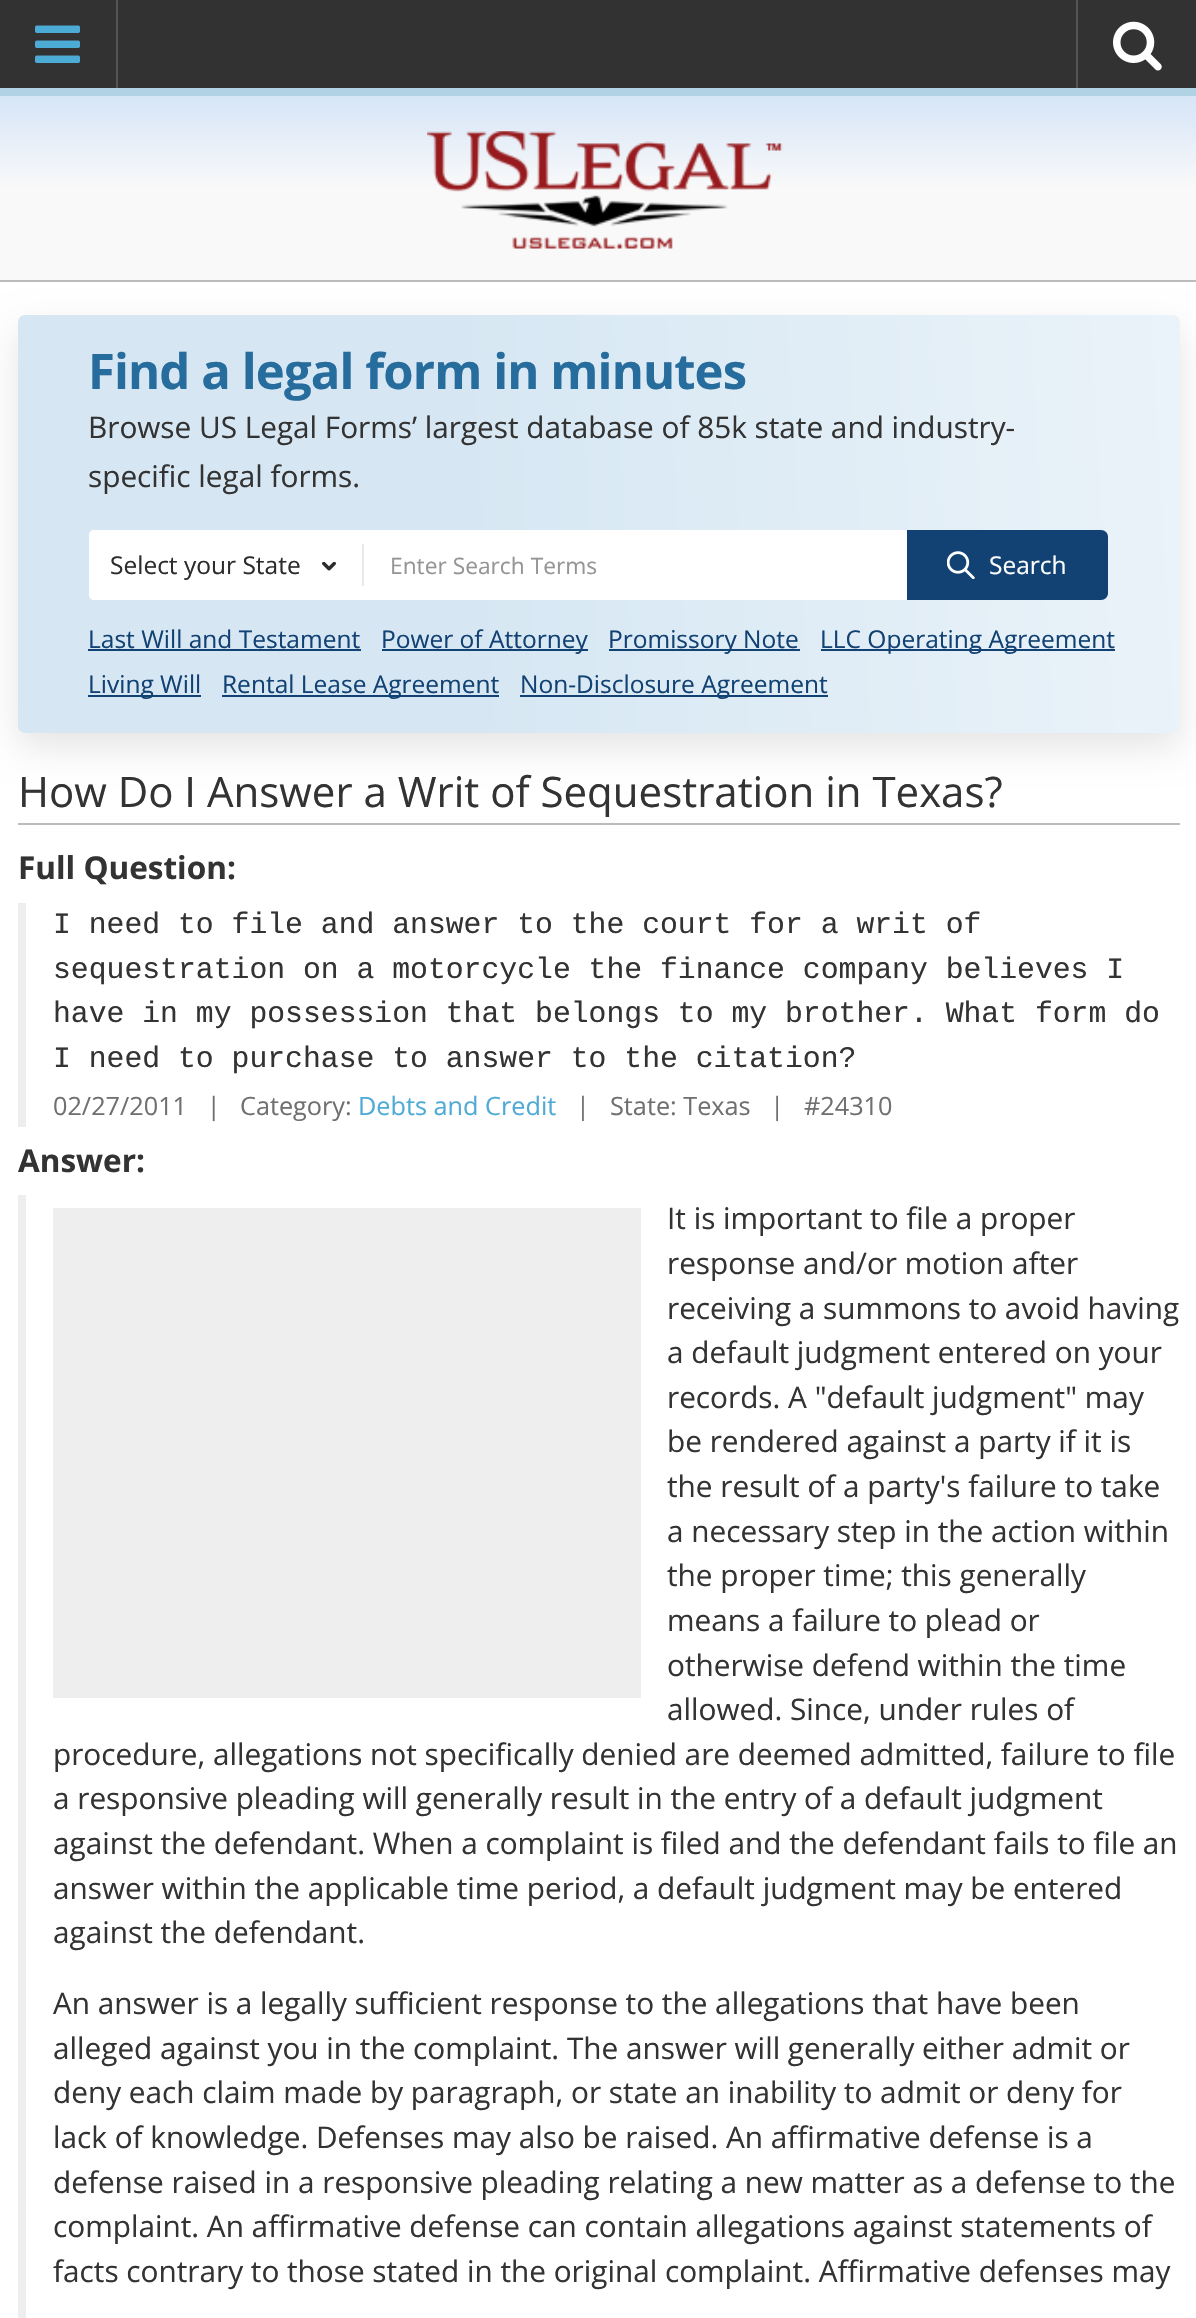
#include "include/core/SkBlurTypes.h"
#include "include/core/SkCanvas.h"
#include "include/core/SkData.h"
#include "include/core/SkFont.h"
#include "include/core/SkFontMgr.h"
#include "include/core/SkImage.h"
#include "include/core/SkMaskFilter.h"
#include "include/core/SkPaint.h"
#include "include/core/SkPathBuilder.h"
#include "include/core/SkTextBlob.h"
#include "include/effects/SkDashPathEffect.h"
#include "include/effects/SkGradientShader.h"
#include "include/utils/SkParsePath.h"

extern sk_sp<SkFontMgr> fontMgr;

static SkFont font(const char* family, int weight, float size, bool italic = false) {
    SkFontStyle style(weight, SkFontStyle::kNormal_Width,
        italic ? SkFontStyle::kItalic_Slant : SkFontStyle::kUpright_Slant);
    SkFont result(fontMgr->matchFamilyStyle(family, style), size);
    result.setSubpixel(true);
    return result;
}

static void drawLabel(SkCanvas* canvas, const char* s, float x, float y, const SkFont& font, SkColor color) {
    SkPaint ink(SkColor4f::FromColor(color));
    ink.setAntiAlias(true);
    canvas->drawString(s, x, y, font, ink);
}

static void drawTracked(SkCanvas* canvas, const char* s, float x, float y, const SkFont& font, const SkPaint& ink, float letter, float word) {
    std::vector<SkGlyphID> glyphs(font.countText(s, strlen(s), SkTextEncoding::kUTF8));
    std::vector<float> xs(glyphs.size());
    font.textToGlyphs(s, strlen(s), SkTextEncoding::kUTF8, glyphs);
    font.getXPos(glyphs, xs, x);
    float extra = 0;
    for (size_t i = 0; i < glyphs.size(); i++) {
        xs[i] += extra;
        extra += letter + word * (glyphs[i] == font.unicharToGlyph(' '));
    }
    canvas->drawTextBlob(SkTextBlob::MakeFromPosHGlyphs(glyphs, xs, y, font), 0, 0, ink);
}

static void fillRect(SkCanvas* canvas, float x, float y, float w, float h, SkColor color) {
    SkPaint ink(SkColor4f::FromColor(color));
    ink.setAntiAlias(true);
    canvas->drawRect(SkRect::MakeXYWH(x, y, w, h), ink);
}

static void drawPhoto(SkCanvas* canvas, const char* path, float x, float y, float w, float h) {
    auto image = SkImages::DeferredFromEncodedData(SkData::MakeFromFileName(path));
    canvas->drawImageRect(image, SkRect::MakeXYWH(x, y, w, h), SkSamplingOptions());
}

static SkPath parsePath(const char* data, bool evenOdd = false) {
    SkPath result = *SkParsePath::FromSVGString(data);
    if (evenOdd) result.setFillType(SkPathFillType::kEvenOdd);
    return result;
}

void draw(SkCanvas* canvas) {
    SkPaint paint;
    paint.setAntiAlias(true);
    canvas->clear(0xFFFFFFFF);
    fillRect(canvas, 0, 0, 1196, 88, 0xFF323232);
    fillRect(canvas, 116, 0, 2, 88, 0xFF555555);
    drawPhoto(canvas, "assets/img1.png", 35, 25, 45, 38);
    fillRect(canvas, 1076, 0, 2, 88, 0xFF555555);
    drawPhoto(canvas, "assets/img2.png", 1113, 21, 49, 50);
    {
        const SkColor colors[] = {0xFFD6E5F8, 0xFFF9F9F9, 0xFFF9F9F9};
        const float stops[] = {0, 0.5f, 1};
        const SkPoint ends[] = {{599, 96}, {599, 280}};
        paint.setShader(SkGradientShader::MakeLinear(ends, colors, stops, 3, SkTileMode::kClamp));
        paint.setAlpha(255);
    }
    canvas->drawRect(SkRect::MakeXYWH(0, 96, 1196, 184), paint);
    fillRect(canvas, 0, 88, 1196, 8, 0xFFB1D2E5);
    drawPhoto(canvas, "assets/img3.png", 427, 131, 356, 118);
    paint.setShader(nullptr);
    paint.setColor(0x1A000000);
    paint.setMaskFilter(SkMaskFilter::MakeBlur(kNormal_SkBlurStyle, 17.5f));
    canvas->drawRoundRect(SkRect::MakeXYWH(18, 329, 1162, 418), 7, 7, paint);
    paint.setMaskFilter(nullptr);
    fillRect(canvas, 0, 280, 1196, 2, 0xFFBBBBBB);
    {
        const SkColor colors[] = {0xFFD6E7F3, 0xFFFFFFFF};
        const float stops[] = {0.24f, 1};
        const SkPoint ends[] = {{7.4f, 558}, {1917, 448}};
        paint.setShader(SkGradientShader::MakeLinear(ends, colors, stops, 2, SkTileMode::kClamp));
        paint.setAlpha(255);
    }
    canvas->drawRoundRect(SkRect::MakeXYWH(18, 315, 1162, 418), 7, 7, paint);
    SkFont font1 = font("Open Sans", 700, 49);
    paint.setShader(nullptr);
    paint.setColor(0xFF266C9C);
    drawTracked(canvas, "Find a legal form in minutes", 88, 389, font1, paint, -0.9f, 0);
    SkFont font2 = font("Open Sans", 400, 29.75f);
    drawLabel(canvas, "Browse US Legal Forms’ largest database of 85k state and industry-", 88, 438, font2, 0xFF333333);
    drawLabel(canvas, "specific legal forms.", 88, 487, font2, 0xFF333333);
    paint.setColor(0xFFFFFFFF);
    canvas->drawPath(parsePath("M94 530H362V600H94C91 600 89 598 89 595V535C89 532 91 530 94 530Z"), paint);
    SkFont font3 = font("Open Sans", 400, 24.5f);
    drawLabel(canvas, "Select your State", 110, 574, font3, 0xFF2C2C2C);
    drawPhoto(canvas, "assets/img4.png", 322, 562, 14, 9);
    fillRect(canvas, 362, 530, 545, 70, 0xFFFFFFFF);
    fillRect(canvas, 362, 544, 2, 42, 0xFFE9E9E9);
    SkFont font4 = font("Open Sans", 400, 22.75f);
    drawLabel(canvas, "Enter Search Terms", 390, 574, font4, 0xFF959595);
    paint.setColor(0xFF124273);
    canvas->drawPath(parsePath("M907 530H1101C1105 530 1108 533 1108 537V593C1108 597 1105 600 1101 600H907Z"), paint);
    drawPhoto(canvas, "assets/img5.png", 947, 551, 28, 28);
    drawLabel(canvas, "Search", 989, 574, font3, 0xFFFFFFFF);
    drawLabel(canvas, "Last Will and Testament", 88, 648, font3, 0xFF124273);
    fillRect(canvas, 88, 649, 273, 2, 0xFF124273);
    fillRect(canvas, 382, 649, 206, 2, 0xFF124273);
    drawLabel(canvas, "Power of Attorney", 381, 648, font3, 0xFF124273);
    fillRect(canvas, 609, 649, 191, 2, 0xFF124273);
    drawLabel(canvas, "Promissory Note", 608, 648, font3, 0xFF124273);
    fillRect(canvas, 821, 649, 294, 2, 0xFF124273);
    drawLabel(canvas, "LLC Operating Agreement", 820, 648, font3, 0xFF124273);
    fillRect(canvas, 88, 695, 113, 2, 0xFF124273);
    drawLabel(canvas, "Living Will", 88, 693, font3, 0xFF124273);
    fillRect(canvas, 222, 695, 277, 2, 0xFF124273);
    drawLabel(canvas, "Rental Lease Agreement", 222, 693, font3, 0xFF124273);
    fillRect(canvas, 520, 695, 308, 2, 0xFF124273);
    drawLabel(canvas, "Non-Disclosure Agreement", 520, 693, font3, 0xFF124273);
    fillRect(canvas, 18, 823, 1162, 2, 0xFFBBBBBB);
    SkFont font5 = font("Open Sans", 400, 42);
    drawLabel(canvas, "How Do I Answer a Writ of Sequestration in Texas?", 18, 807, font5, 0xFF333333);
    SkFont font6 = font("Open Sans", 700, 31.5f);
    drawLabel(canvas, "Full Question:", 18, 879, font6, 0xFF333333);
    fillRect(canvas, 18, 903, 8, 224, 0xFFEEEEEE);
    SkFont font7 = font("Liberation Mono", 400, 29.75f);
    drawLabel(canvas, "I need to file and answer to the court for a writ of", 53, 933, font7, 0xFF333333);
    drawLabel(canvas, "sequestration on a motorcycle the finance company believes I", 53, 978, font7, 0xFF333333);
    drawLabel(canvas, "have in my possession that belongs to my brother. What form do", 53, 1022, font7, 0xFF333333);
    drawLabel(canvas, "I need to purchase to answer to the citation?", 53, 1067, font7, 0xFF333333);
    SkFont font8 = font("Open Sans", 400, 25.25f);
    drawLabel(canvas, "02/27/2011   |", 53, 1115, font8, 0xFF707070);
    drawLabel(canvas, "Category:", 240, 1115, font8, 0xFF707070);
    drawLabel(canvas, "Debts and Credit", 358, 1115, font8, 0xFF4FABD6);
    drawLabel(canvas, "|", 576, 1115, font8, 0xFF707070);
    drawLabel(canvas, "State: Texas   |", 610, 1115, font8, 0xFF707070);
    drawLabel(canvas, "#24310", 804, 1115, font8, 0xFF707070);
    drawLabel(canvas, "Answer:", 18, 1172, font6, 0xFF333333);
    fillRect(canvas, 18, 1195, 8, 1123, 0xFFEEEEEE);
    drawLabel(canvas, "It is important to file a proper", 667, 1229, font2, 0xFF333333);
    drawLabel(canvas, "response and/or motion after", 667, 1274, font2, 0xFF333333);
    drawLabel(canvas, "receiving a summons to avoid having", 667, 1319, font2, 0xFF333333);
    drawLabel(canvas, "a default judgment entered on your", 667, 1363, font2, 0xFF333333);
    drawLabel(canvas, "records. A \"default judgment\" may", 667, 1408, font2, 0xFF333333);
    drawLabel(canvas, "be rendered against a party if it is", 667, 1452, font2, 0xFF333333);
    drawLabel(canvas, "the result of a party's failure to take", 667, 1497, font2, 0xFF333333);
    drawLabel(canvas, "a necessary step in the action within", 667, 1542, font2, 0xFF333333);
    drawLabel(canvas, "the proper time; this generally", 667, 1586, font2, 0xFF333333);
    drawLabel(canvas, "means a failure to plead or", 667, 1631, font2, 0xFF333333);
    drawLabel(canvas, "otherwise defend within the time", 667, 1676, font2, 0xFF333333);
    drawLabel(canvas, "allowed. Since, under rules of", 667, 1720, font2, 0xFF333333);
    drawLabel(canvas, "procedure, allegations not specifically denied are deemed admitted, failure to file", 53, 1765, font2, 0xFF333333);
    drawLabel(canvas, "a responsive pleading will generally result in the entry of a default judgment", 53, 1809, font2, 0xFF333333);
    drawLabel(canvas, "against the defendant. When a complaint is filed and the defendant fails to file an", 53, 1854, font2, 0xFF333333);
    drawLabel(canvas, "answer within the applicable time period, a default judgment may be entered", 53, 1899, font2, 0xFF333333);
    drawLabel(canvas, "against the defendant.", 53, 1943, font2, 0xFF333333);
    fillRect(canvas, 53, 1208, 588, 490, 0xFFEEEEEE);
    drawLabel(canvas, "An answer is a legally sufficient response to the allegations that have been", 53, 2014, font2, 0xFF333333);
    drawLabel(canvas, "alleged against you in the complaint. The answer will generally either admit or", 53, 2059, font2, 0xFF333333);
    drawLabel(canvas, "deny each claim made by paragraph, or state an inability to admit or deny for", 53, 2103, font2, 0xFF333333);
    drawLabel(canvas, "lack of knowledge. Defenses may also be raised. An affirmative defense is a", 53, 2148, font2, 0xFF333333);
    drawLabel(canvas, "defense raised in a responsive pleading relating a new matter as a defense to the", 53, 2193, font2, 0xFF333333);
    drawLabel(canvas, "complaint. An affirmative defense can contain allegations against statements of", 53, 2237, font2, 0xFF333333);
    drawLabel(canvas, "facts contrary to those stated in the original complaint. Affirmative defenses may", 53, 2282, font2, 0xFF333333);
}
